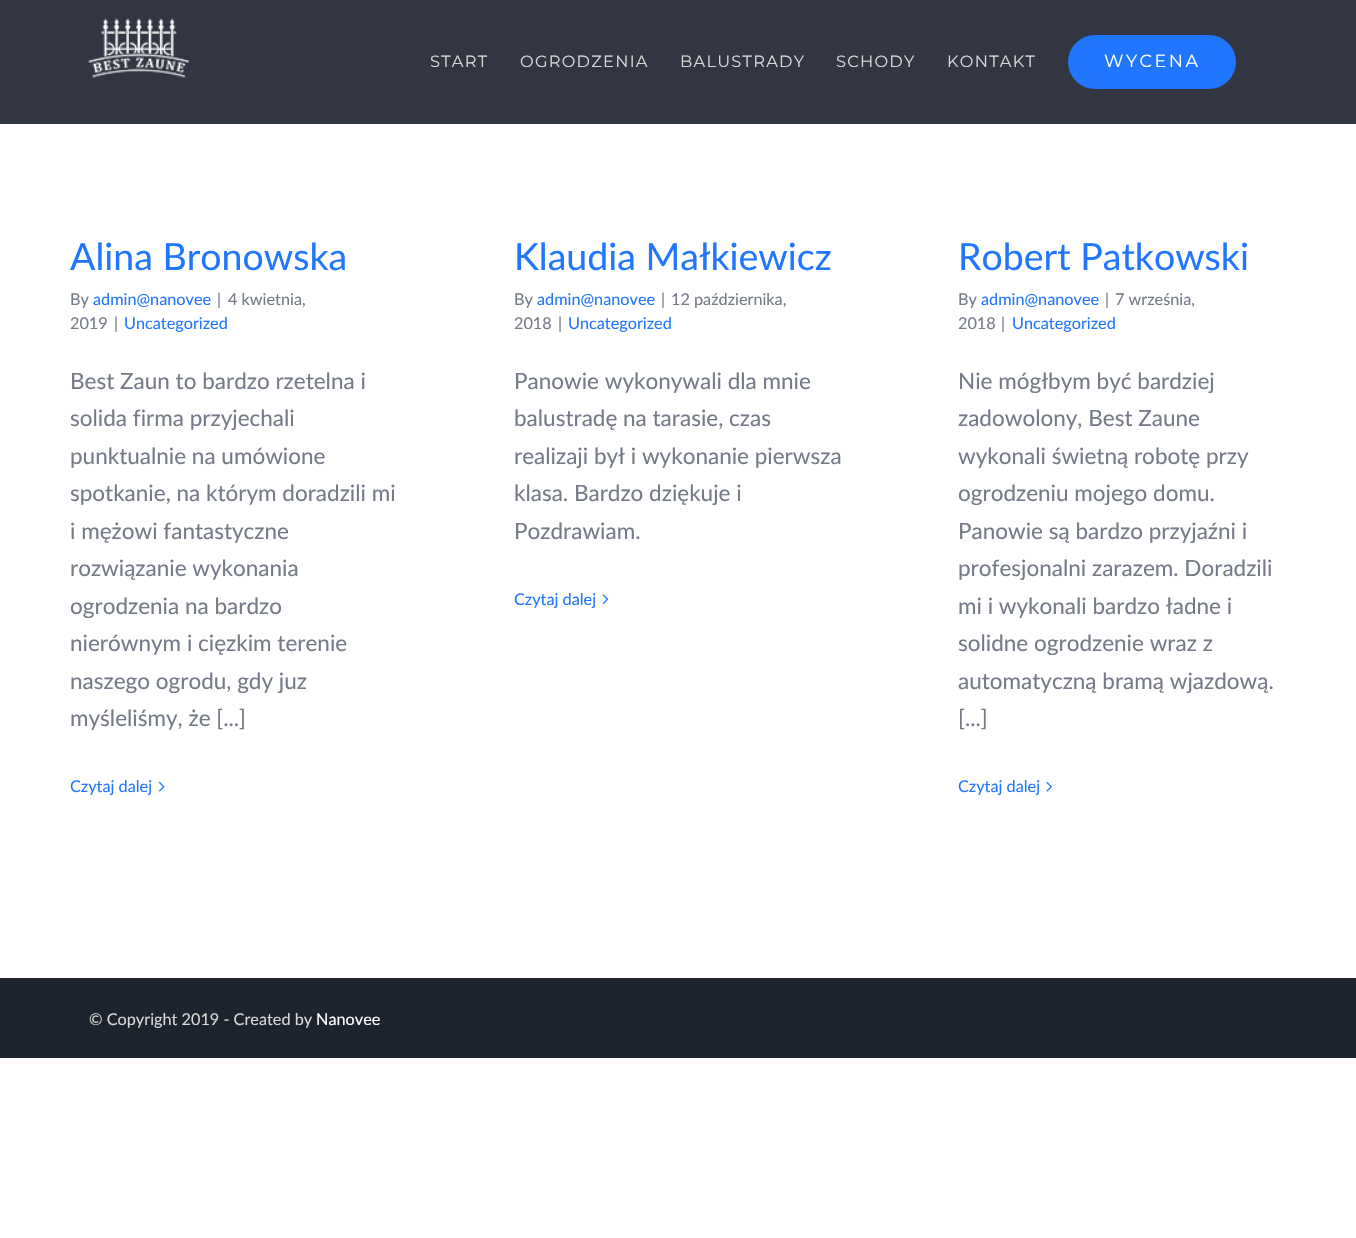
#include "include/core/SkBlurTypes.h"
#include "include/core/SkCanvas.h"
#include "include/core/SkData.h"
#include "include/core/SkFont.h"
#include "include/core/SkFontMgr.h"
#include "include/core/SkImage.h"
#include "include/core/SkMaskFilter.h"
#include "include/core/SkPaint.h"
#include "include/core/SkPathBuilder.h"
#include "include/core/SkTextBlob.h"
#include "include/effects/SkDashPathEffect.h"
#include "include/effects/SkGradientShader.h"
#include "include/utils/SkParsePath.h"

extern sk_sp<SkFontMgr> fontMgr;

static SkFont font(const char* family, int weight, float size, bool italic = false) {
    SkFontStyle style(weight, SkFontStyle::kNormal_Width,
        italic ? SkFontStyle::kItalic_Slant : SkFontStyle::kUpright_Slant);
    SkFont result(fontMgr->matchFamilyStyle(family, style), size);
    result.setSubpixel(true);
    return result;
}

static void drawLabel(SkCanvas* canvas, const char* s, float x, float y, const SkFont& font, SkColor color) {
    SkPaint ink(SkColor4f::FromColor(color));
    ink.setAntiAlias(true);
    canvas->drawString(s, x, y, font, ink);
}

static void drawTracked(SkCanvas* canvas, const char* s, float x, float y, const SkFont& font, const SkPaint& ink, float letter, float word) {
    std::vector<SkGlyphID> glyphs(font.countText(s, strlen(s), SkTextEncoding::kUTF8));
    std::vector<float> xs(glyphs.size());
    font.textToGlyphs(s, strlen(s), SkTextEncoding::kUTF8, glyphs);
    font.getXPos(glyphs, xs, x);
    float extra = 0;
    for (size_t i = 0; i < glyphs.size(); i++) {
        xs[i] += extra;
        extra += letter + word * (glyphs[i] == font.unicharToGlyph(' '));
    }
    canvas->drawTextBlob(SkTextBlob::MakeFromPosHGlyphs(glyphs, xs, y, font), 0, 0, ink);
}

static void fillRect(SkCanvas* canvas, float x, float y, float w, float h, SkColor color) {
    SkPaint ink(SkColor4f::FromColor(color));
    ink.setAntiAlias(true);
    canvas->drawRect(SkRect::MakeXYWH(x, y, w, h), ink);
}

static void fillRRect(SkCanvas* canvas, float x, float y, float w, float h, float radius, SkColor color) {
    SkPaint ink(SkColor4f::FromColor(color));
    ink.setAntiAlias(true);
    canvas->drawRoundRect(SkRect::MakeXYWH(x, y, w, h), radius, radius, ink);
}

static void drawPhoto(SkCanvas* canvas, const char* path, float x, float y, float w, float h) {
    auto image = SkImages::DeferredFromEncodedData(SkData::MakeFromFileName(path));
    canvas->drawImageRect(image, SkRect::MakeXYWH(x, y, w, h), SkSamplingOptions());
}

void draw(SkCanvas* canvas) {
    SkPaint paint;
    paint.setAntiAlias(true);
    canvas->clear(0xFFFFFFFF);
    fillRect(canvas, 0, 0, 1356, 124, 0xFF323643);
    drawPhoto(canvas, "assets/img1.png", 88, 18, 101, 60);
    SkFont font1 = font("Montserrat", 400, 16.25f);
    paint.setColor(0xFFD8D8D8);
    drawTracked(canvas, "START", 430, 67, font1, paint, 1.25f, 0);
    drawTracked(canvas, "OGRODZENIA", 520, 67, font1, paint, 1.25f, 0);
    drawTracked(canvas, "BALUSTRADY", 680, 67, font1, paint, 1.25f, 0);
    drawTracked(canvas, "SCHODY", 836, 67, font1, paint, 1.25f, 0);
    drawTracked(canvas, "KONTAKT", 947, 67, font1, paint, 1.25f, 0);
    fillRRect(canvas, 1068, 35, 168, 54, 27, 0xFF2176FF);
    SkFont font2 = font("Montserrat", 400, 17.5f);
    paint.setColor(0xFFFFFFFF);
    drawTracked(canvas, "WYCENA", 1104, 67, font2, paint, 2.5f, 0);
    SkFont font3 = font("Lato", 400, 37.5f);
    drawLabel(canvas, "Alina Bronowska", 70, 270, font3, 0xFF2176FF);
    SkFont font4 = font("Lato", 400, 16.25f);
    drawLabel(canvas, "By", 70, 305, font4, 0xFF747A87);
    drawLabel(canvas, "admin@nanovee", 93, 305, font4, 0xFF2176FF);
    drawLabel(canvas, "|", 217, 305, font4, 0xFF747A87);
    drawLabel(canvas, "4 kwietnia,", 228, 305, font4, 0xFF747A87);
    drawLabel(canvas, "2019", 70, 329, font4, 0xFF747A87);
    drawLabel(canvas, "|", 114, 329, font4, 0xFF747A87);
    drawLabel(canvas, "Uncategorized", 124, 329, font4, 0xFF2176FF);
    SkFont font5 = font("Lato", 400, 22.5f);
    drawLabel(canvas, "Best Zaun to bardzo rzetelna i", 70, 389, font5, 0xFF747A87);
    drawLabel(canvas, "solida firma przyjechali", 70, 426, font5, 0xFF747A87);
    drawLabel(canvas, "punktualnie na umówione", 70, 464, font5, 0xFF747A87);
    drawLabel(canvas, "spotkanie, na którym doradzili mi", 70, 501, font5, 0xFF747A87);
    drawLabel(canvas, "i mężowi fantastyczne", 70, 539, font5, 0xFF747A87);
    drawLabel(canvas, "rozwiązanie wykonania", 70, 576, font5, 0xFF747A87);
    drawLabel(canvas, "ogrodzenia na bardzo", 70, 614, font5, 0xFF747A87);
    drawLabel(canvas, "nierównym i cięzkim terenie", 70, 651, font5, 0xFF747A87);
    drawLabel(canvas, "naszego ogrodu, gdy juz", 70, 689, font5, 0xFF747A87);
    drawLabel(canvas, "myśleliśmy, że [...]", 70, 726, font5, 0xFF747A87);
    drawLabel(canvas, "Czytaj dalej", 70, 792, font4, 0xFF2176FF);
    drawPhoto(canvas, "assets/img2.png", 158, 781, 7, 11);
    drawLabel(canvas, "Klaudia Małkiewicz", 514, 270, font3, 0xFF2176FF);
    drawLabel(canvas, "By", 514, 305, font4, 0xFF747A87);
    drawLabel(canvas, "admin@nanovee", 537, 305, font4, 0xFF2176FF);
    drawLabel(canvas, "|", 661, 305, font4, 0xFF747A87);
    drawLabel(canvas, "12 października,", 671, 305, font4, 0xFF747A87);
    drawLabel(canvas, "2018", 514, 329, font4, 0xFF747A87);
    drawLabel(canvas, "|", 558, 329, font4, 0xFF747A87);
    drawLabel(canvas, "Uncategorized", 568, 329, font4, 0xFF2176FF);
    drawLabel(canvas, "Panowie wykonywali dla mnie", 514, 389, font5, 0xFF747A87);
    drawLabel(canvas, "balustradę na tarasie, czas", 514, 426, font5, 0xFF747A87);
    drawLabel(canvas, "realizaji był i wykonanie pierwsza", 514, 464, font5, 0xFF747A87);
    drawLabel(canvas, "klasa. Bardzo dziękuje i", 514, 501, font5, 0xFF747A87);
    drawLabel(canvas, "Pozdrawiam.", 514, 539, font5, 0xFF747A87);
    drawLabel(canvas, "Czytaj dalej", 514, 605, font4, 0xFF2176FF);
    drawPhoto(canvas, "assets/img3.png", 602, 594, 7, 10);
    drawLabel(canvas, "Robert Patkowski", 958, 270, font3, 0xFF2176FF);
    drawLabel(canvas, "By", 958, 305, font4, 0xFF747A87);
    drawLabel(canvas, "admin@nanovee", 981, 305, font4, 0xFF2176FF);
    drawLabel(canvas, "|", 1105, 305, font4, 0xFF747A87);
    drawLabel(canvas, "7 września,", 1115, 305, font4, 0xFF747A87);
    drawLabel(canvas, "2018", 958, 329, font4, 0xFF747A87);
    drawLabel(canvas, "|", 1001, 329, font4, 0xFF747A87);
    drawLabel(canvas, "Uncategorized", 1012, 329, font4, 0xFF2176FF);
    drawLabel(canvas, "Nie mógłbym być bardziej", 958, 389, font5, 0xFF747A87);
    drawLabel(canvas, "zadowolony, Best Zaune", 958, 426, font5, 0xFF747A87);
    drawLabel(canvas, "wykonali świetną robotę przy", 958, 464, font5, 0xFF747A87);
    drawLabel(canvas, "ogrodzeniu mojego domu.", 958, 501, font5, 0xFF747A87);
    drawLabel(canvas, "Panowie są bardzo przyjaźni i", 958, 539, font5, 0xFF747A87);
    drawLabel(canvas, "profesjonalni zarazem. Doradzili", 958, 576, font5, 0xFF747A87);
    drawLabel(canvas, "mi i wykonali bardzo ładne i", 958, 614, font5, 0xFF747A87);
    drawLabel(canvas, "solidne ogrodzenie wraz z", 958, 651, font5, 0xFF747A87);
    drawLabel(canvas, "automatyczną bramą wjazdową.", 958, 689, font5, 0xFF747A87);
    drawLabel(canvas, "[...]", 958, 726, font5, 0xFF747A87);
    drawLabel(canvas, "Czytaj dalej", 958, 792, font4, 0xFF2176FF);
    drawPhoto(canvas, "assets/img4.png", 1046, 781, 6, 11);
    fillRect(canvas, 0, 978, 1356, 80, 0xFF1D242D);
    drawLabel(canvas, "© Copyright 2019 - Created by", 89, 1025, font4, 0xFFD8D8D8);
    drawLabel(canvas, "Nanovee", 316, 1025, font4, 0xFFFFFFFF);
}
